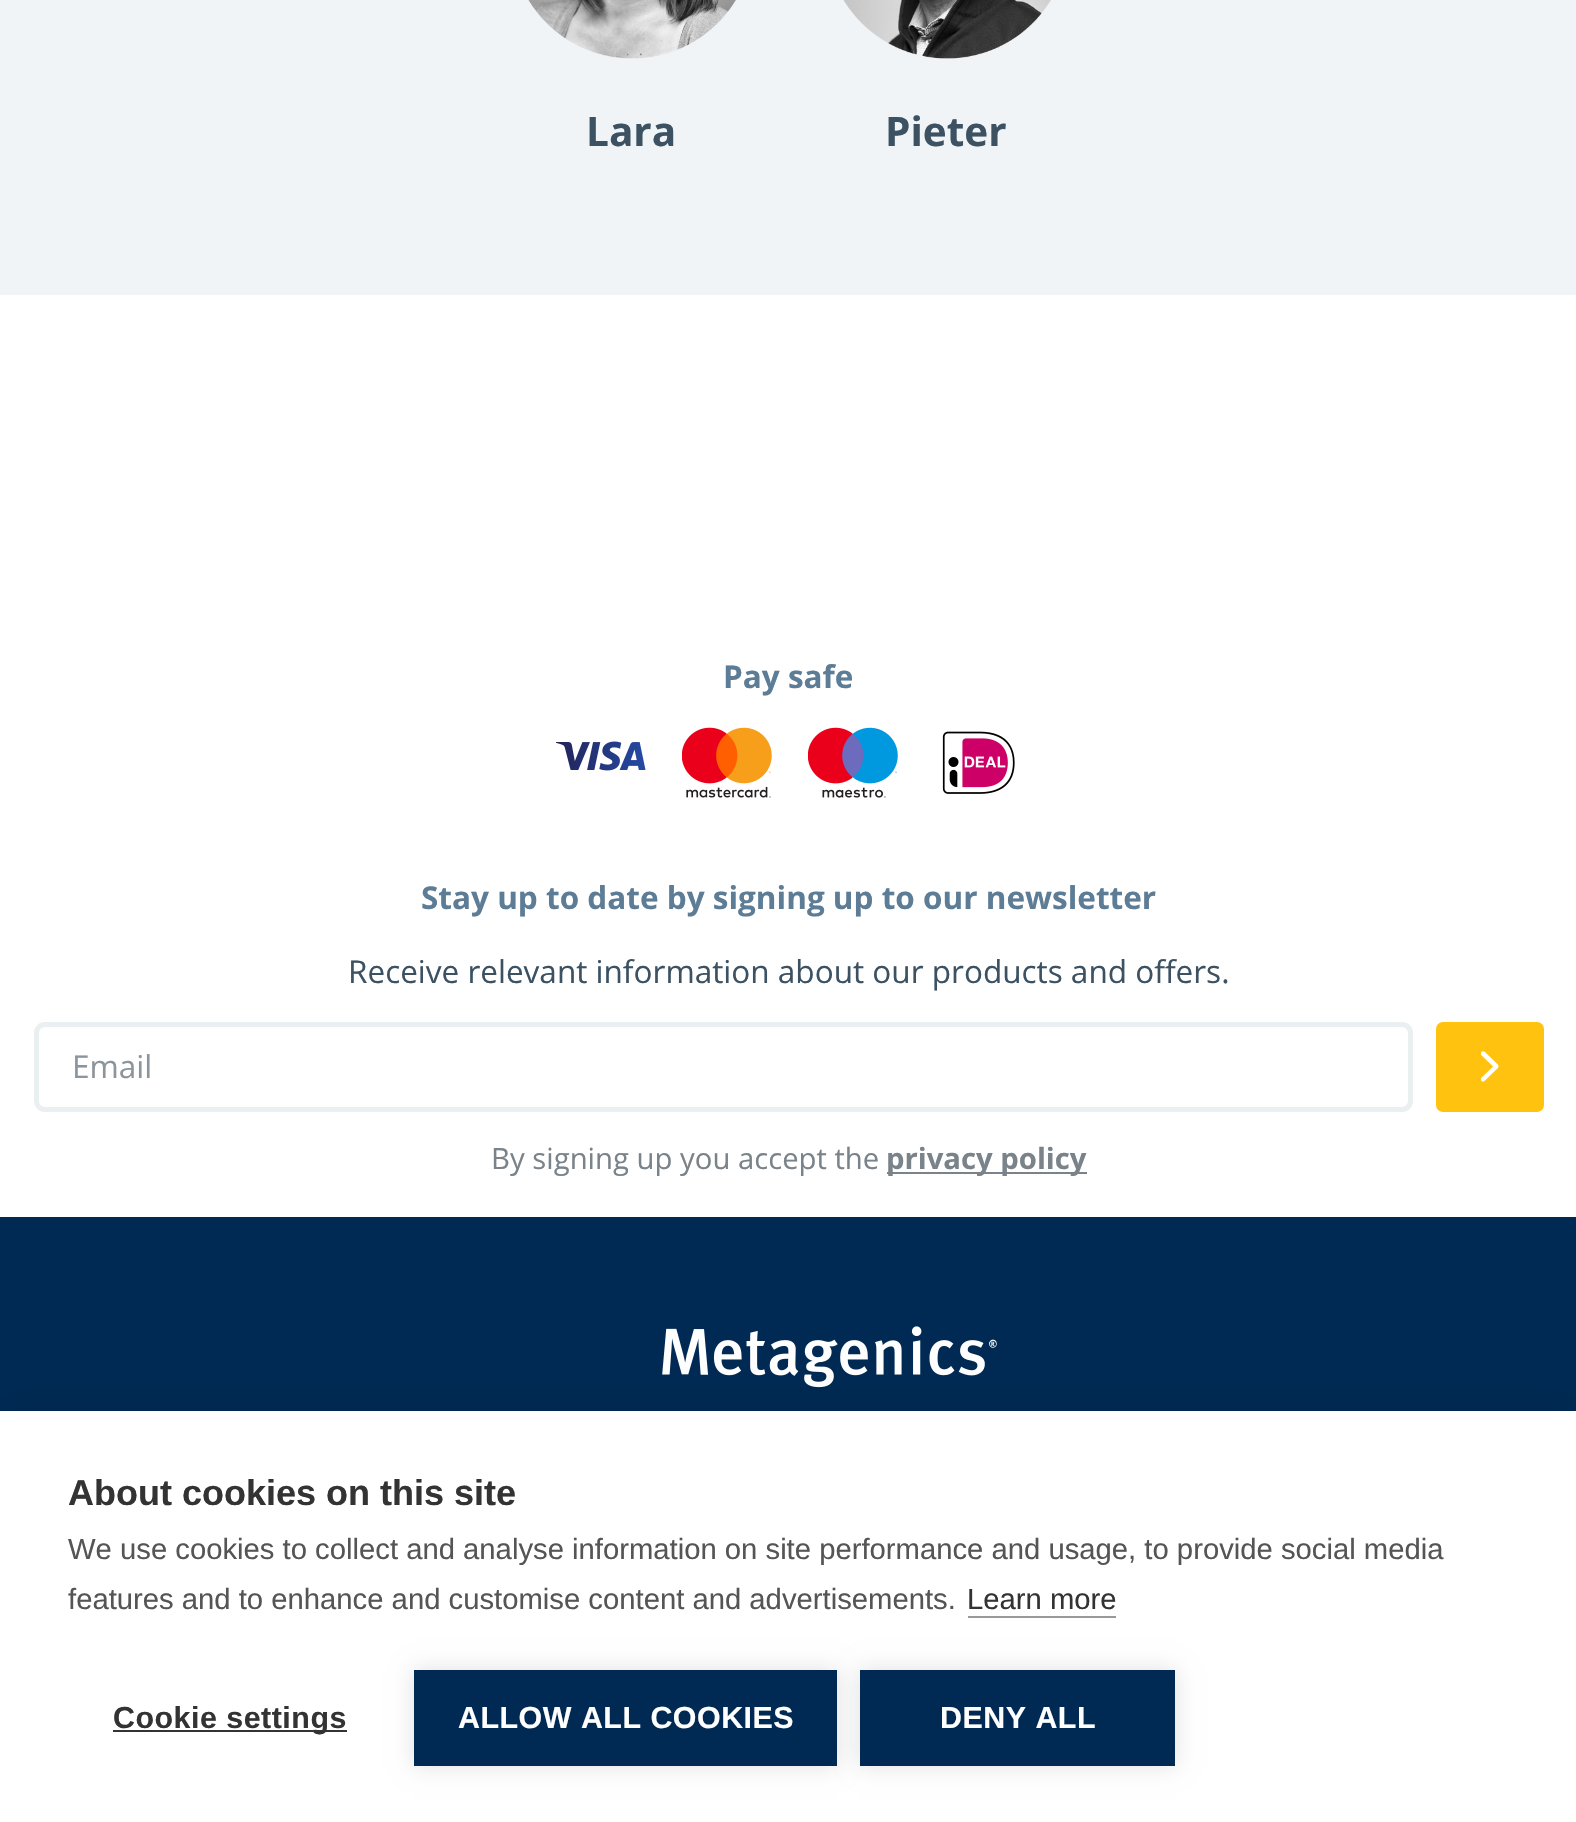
#include "include/core/SkBlurTypes.h"
#include "include/core/SkCanvas.h"
#include "include/core/SkData.h"
#include "include/core/SkFont.h"
#include "include/core/SkFontMgr.h"
#include "include/core/SkImage.h"
#include "include/core/SkMaskFilter.h"
#include "include/core/SkPaint.h"
#include "include/core/SkPathBuilder.h"
#include "include/core/SkTextBlob.h"
#include "include/effects/SkDashPathEffect.h"
#include "include/effects/SkGradientShader.h"
#include "include/utils/SkParsePath.h"

extern sk_sp<SkFontMgr> fontMgr;

static SkFont font(const char* family, int weight, float size, bool italic = false) {
    SkFontStyle style(weight, SkFontStyle::kNormal_Width,
        italic ? SkFontStyle::kItalic_Slant : SkFontStyle::kUpright_Slant);
    SkFont result(fontMgr->matchFamilyStyle(family, style), size);
    result.setSubpixel(true);
    return result;
}

static void drawLabel(SkCanvas* canvas, const char* s, float x, float y, const SkFont& font, SkColor color) {
    SkPaint ink(SkColor4f::FromColor(color));
    ink.setAntiAlias(true);
    canvas->drawString(s, x, y, font, ink);
}

static void drawTracked(SkCanvas* canvas, const char* s, float x, float y, const SkFont& font, const SkPaint& ink, float letter, float word) {
    std::vector<SkGlyphID> glyphs(font.countText(s, strlen(s), SkTextEncoding::kUTF8));
    std::vector<float> xs(glyphs.size());
    font.textToGlyphs(s, strlen(s), SkTextEncoding::kUTF8, glyphs);
    font.getXPos(glyphs, xs, x);
    float extra = 0;
    for (size_t i = 0; i < glyphs.size(); i++) {
        xs[i] += extra;
        extra += letter + word * (glyphs[i] == font.unicharToGlyph(' '));
    }
    canvas->drawTextBlob(SkTextBlob::MakeFromPosHGlyphs(glyphs, xs, y, font), 0, 0, ink);
}

static void fillRect(SkCanvas* canvas, float x, float y, float w, float h, SkColor color) {
    SkPaint ink(SkColor4f::FromColor(color));
    ink.setAntiAlias(true);
    canvas->drawRect(SkRect::MakeXYWH(x, y, w, h), ink);
}

static void drawPhoto(SkCanvas* canvas, const char* path, float x, float y, float w, float h) {
    auto image = SkImages::DeferredFromEncodedData(SkData::MakeFromFileName(path));
    canvas->drawImageRect(image, SkRect::MakeXYWH(x, y, w, h), SkSamplingOptions());
}

void draw(SkCanvas* canvas) {
    SkPaint paint;
    paint.setAntiAlias(true);
    canvas->clear(0xFFFFFFFF);
    fillRect(canvas, 0, 0, 1576, 295, 0xFFF0F4F6);
    drawPhoto(canvas, "assets/img1.png", 528, 0, 208, 59);
    SkFont font1 = font("Open Sans", 700, 40.5f);
    drawLabel(canvas, "Lara", 586, 146, font1, 0xFF3C5263);
    drawPhoto(canvas, "assets/img2.png", 843, 0, 208, 59);
    drawLabel(canvas, "Pieter", 885, 146, font1, 0xFF3C5263);
    SkFont font2 = font("Open Sans", 700, 31.5f);
    drawLabel(canvas, "Pay safe", 723, 688, font2, 0xFF5D7C95);
    drawPhoto(canvas, "assets/img3.png", 556, 741, 90, 30);
    drawPhoto(canvas, "assets/img4.png", 682, 727, 90, 71);
    drawPhoto(canvas, "assets/img5.png", 808, 727, 90, 71);
    drawPhoto(canvas, "assets/img6.png", 942, 731, 73, 63);
    drawLabel(canvas, "Stay up to date by signing up to our newsletter", 421, 909, font2, 0xFF5D7C95);
    SkFont font3 = font("Open Sans", 400, 31.5f);
    drawLabel(canvas, "Receive relevant information about our products and offers.", 348, 983, font3, 0xFF3C5263);
    paint.setStroke(true);
    paint.setStrokeWidth(5);
    paint.setColor(0xFFEAEFF2);
    canvas->drawRoundRect(SkRect::MakeXYWH(36.5f, 1024.5f, 1374, 85), 8.5f, 8.5f, paint);
    drawLabel(canvas, "Email", 72, 1078, font3, 0xFF8C959B);
    paint.setStroke(false);
    paint.setColor(0xFFFFC20E);
    canvas->drawRoundRect(SkRect::MakeXYWH(1438.5f, 1024.5f, 103, 85), 4.5f, 4.5f, paint);
    paint.setStroke(true);
    canvas->drawRoundRect(SkRect::MakeXYWH(1438.5f, 1024.5f, 103, 85), 4.5f, 4.5f, paint);
    drawPhoto(canvas, "assets/img7.png", 1481, 1051, 18, 31);
    SkFont font4 = font("Open Sans", 400, 29.25f);
    drawLabel(canvas, "By signing up you accept the", 491, 1169, font4, 0xFF798389);
    fillRect(canvas, 887, 1172, 200, 2, 0xFF798389);
    SkFont font5 = font("Open Sans", 700, 29.25f);
    drawLabel(canvas, "privacy policy", 886, 1169, font5, 0xFF798389);
    fillRect(canvas, 0, 1217, 1576, 194, 0xFF002A54);
    drawPhoto(canvas, "assets/img8.png", 662, 1326, 335, 62);
    paint.setStroke(false);
    paint.setColor(0x1A000000);
    paint.setMaskFilter(SkMaskFilter::MakeBlur(kNormal_SkBlurStyle, 22.5f));
    canvas->drawRect(SkRect::MakeXYWH(0, 1411, 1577, 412), paint);
    paint.setMaskFilter(nullptr);
    fillRect(canvas, 0, 1411, 1576, 411, 0xFFFFFFFF);
    SkFont font6 = font("Liberation Sans", 700, 36);
    drawLabel(canvas, "About cookies on this site", 68, 1505, font6, 0xFF333333);
    SkFont font7 = font("Liberation Sans", 400, 29.25f);
    drawLabel(canvas, "We use cookies to collect and analyse information on site performance and usage, to provide social media", 68, 1559, font7, 0xFF555555);
    drawLabel(canvas, "features and to enhance and customise content and advertisements.", 68, 1609, font7, 0xFF555555);
    drawLabel(canvas, "Learn more", 967, 1609, font7, 0xFF333333);
    fillRect(canvas, 968, 1616, 148, 2, 0xFF999999);
    fillRect(canvas, 113, 1730, 234, 2, 0xFF333333);
    SkFont font8 = font("Liberation Sans", 700, 30.4f);
    paint.setColor(0xFF333333);
    drawTracked(canvas, "Cookie settings", 113, 1728, font8, paint, 0.5f, 0);
    paint.setColor(0x1F000000);
    paint.setMaskFilter(SkMaskFilter::MakeBlur(kNormal_SkBlurStyle, 11));
    canvas->drawRect(SkRect::MakeXYWH(414, 1670, 423, 96), paint);
    paint.setMaskFilter(nullptr);
    fillRect(canvas, 414, 1670, 423, 96, 0xFF002A54);
    paint.setColor(0xFFFFFFFF);
    drawTracked(canvas, "ALLOW ALL COOKIES", 458, 1728, font8, paint, 0.5f, 0);
    paint.setColor(0x1F000000);
    paint.setMaskFilter(SkMaskFilter::MakeBlur(kNormal_SkBlurStyle, 11));
    canvas->drawRect(SkRect::MakeXYWH(860, 1670, 315, 96), paint);
    paint.setMaskFilter(nullptr);
    fillRect(canvas, 860, 1670, 315, 96, 0xFF002A54);
    paint.setColor(0xFFFFFFFF);
    drawTracked(canvas, "DENY ALL", 940, 1728, font8, paint, 0.5f, 0);
}
